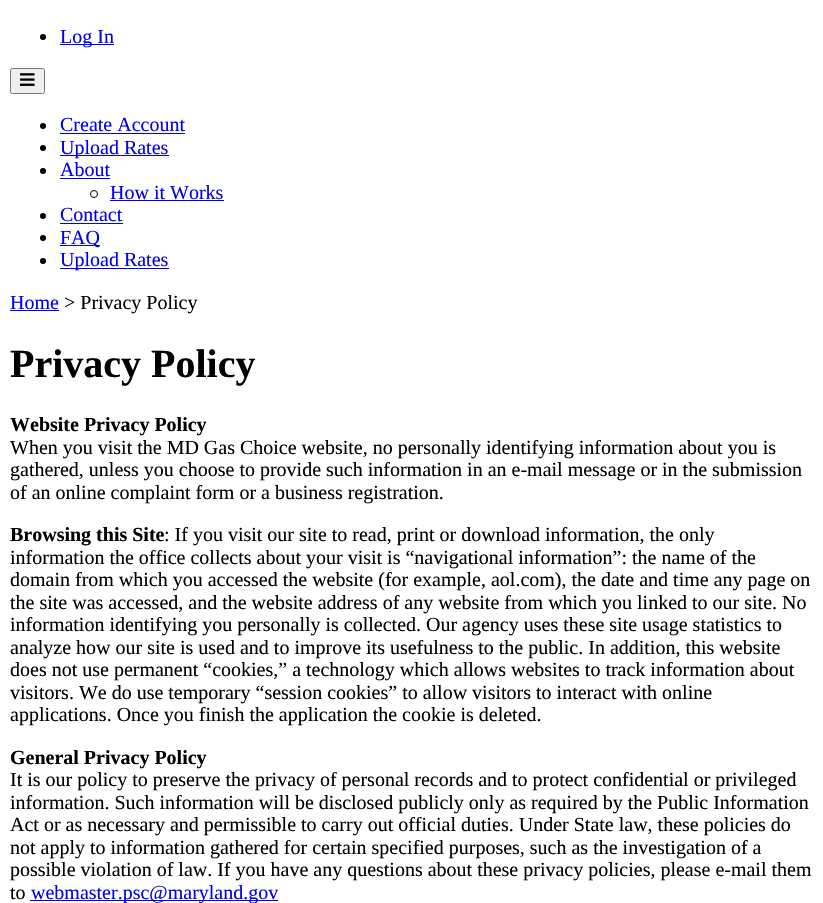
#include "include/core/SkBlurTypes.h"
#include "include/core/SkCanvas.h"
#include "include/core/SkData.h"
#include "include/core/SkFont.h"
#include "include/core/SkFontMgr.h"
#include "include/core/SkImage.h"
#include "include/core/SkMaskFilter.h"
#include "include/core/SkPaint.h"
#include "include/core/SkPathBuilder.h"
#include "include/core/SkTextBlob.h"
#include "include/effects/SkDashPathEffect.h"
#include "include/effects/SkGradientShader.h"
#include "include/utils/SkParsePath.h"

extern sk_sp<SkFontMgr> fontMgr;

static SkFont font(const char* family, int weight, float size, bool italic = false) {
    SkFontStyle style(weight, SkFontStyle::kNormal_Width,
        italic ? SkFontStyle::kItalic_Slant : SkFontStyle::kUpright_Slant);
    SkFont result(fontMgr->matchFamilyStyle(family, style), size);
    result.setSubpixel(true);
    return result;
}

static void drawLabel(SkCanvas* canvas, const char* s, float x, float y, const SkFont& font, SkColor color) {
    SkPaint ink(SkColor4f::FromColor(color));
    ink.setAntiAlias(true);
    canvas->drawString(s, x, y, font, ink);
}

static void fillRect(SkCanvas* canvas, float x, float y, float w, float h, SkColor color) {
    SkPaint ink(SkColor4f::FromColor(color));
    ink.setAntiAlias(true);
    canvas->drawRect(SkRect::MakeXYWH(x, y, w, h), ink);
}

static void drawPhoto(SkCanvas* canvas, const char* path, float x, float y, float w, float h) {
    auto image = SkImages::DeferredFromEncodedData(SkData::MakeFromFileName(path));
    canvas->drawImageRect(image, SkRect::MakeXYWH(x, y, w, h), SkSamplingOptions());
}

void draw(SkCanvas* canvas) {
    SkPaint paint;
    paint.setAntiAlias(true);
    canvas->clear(0xFFFFFFFF);
    paint.setColor(0xFF000000);
    canvas->drawCircle(43, 37, 3, paint);
    fillRect(canvas, 60, 44, 54, 1, 0xFF0000EE);
    SkFont font1 = font("Liberation Serif", 400, 20);
    drawLabel(canvas, "Log In", 60, 43, font1, 0xFF0000EE);
    paint.setColor(0xFFEFEFEF);
    canvas->drawRoundRect(SkRect::MakeXYWH(10.5f, 68.5f, 34, 25), 2, 2, paint);
    paint.setStroke(true);
    paint.setStrokeWidth(1);
    paint.setColor(0xFF767676);
    canvas->drawRoundRect(SkRect::MakeXYWH(10.5f, 68.5f, 34, 25), 2, 2, paint);
    drawPhoto(canvas, "assets/img1.png", 20, 73, 15, 13);
    paint.setStroke(false);
    paint.setColor(0xFF000000);
    canvas->drawCircle(43, 126, 3, paint);
    drawLabel(canvas, "Create Account", 60, 131, font1, 0xFF0000EE);
    fillRect(canvas, 60, 133, 125, 1, 0xFF0000EE);
    canvas->drawCircle(43, 148, 3, paint);
    fillRect(canvas, 60, 155, 109, 1, 0xFF0000EE);
    drawLabel(canvas, "Upload Rates", 60, 154, font1, 0xFF0000EE);
    canvas->drawCircle(43, 171, 3, paint);
    drawLabel(canvas, "About", 60, 176, font1, 0xFF0000EE);
    fillRect(canvas, 60, 178, 50, 1, 0xFF0000EE);
    paint.setStroke(true);
    canvas->drawCircle(94, 194, 3.5f, paint);
    drawLabel(canvas, "How it Works", 110, 199, font1, 0xFF0000EE);
    fillRect(canvas, 110, 200, 114, 1, 0xFF0000EE);
    paint.setStroke(false);
    canvas->drawCircle(43, 216, 3, paint);
    drawLabel(canvas, "Contact", 60, 221, font1, 0xFF0000EE);
    fillRect(canvas, 60, 223, 63, 1, 0xFF0000EE);
    canvas->drawCircle(43, 238, 3, paint);
    fillRect(canvas, 60, 245, 40, 1, 0xFF0000EE);
    drawLabel(canvas, "FAQ", 60, 244, font1, 0xFF0000EE);
    canvas->drawCircle(43, 261, 3, paint);
    fillRect(canvas, 60, 268, 109, 1, 0xFF0000EE);
    drawLabel(canvas, "Upload Rates", 60, 266, font1, 0xFF0000EE);
    drawLabel(canvas, "Home", 10, 309, font1, 0xFF0000EE);
    fillRect(canvas, 10, 310, 49, 1, 0xFF0000EE);
    drawLabel(canvas, "> Privacy Policy", 64, 309, font1, 0xFF000000);
    SkFont font2 = font("Liberation Serif", 700, 40);
    drawLabel(canvas, "Privacy Policy", 10, 377, font2, 0xFF000000);
    SkFont font3 = font("Liberation Serif", 700, 20);
    drawLabel(canvas, "Website Privacy Policy", 10, 431, font3, 0xFF000000);
    drawLabel(canvas, "When you visit the MD Gas Choice website, no personally identifying information about you is", 10, 454, font1, 0xFF000000);
    drawLabel(canvas, "gathered, unless you choose to provide such information in an e-mail message or in the submission", 10, 476, font1, 0xFF000000);
    drawLabel(canvas, "of an online complaint form or a business registration.", 10, 499, font1, 0xFF000000);
    drawLabel(canvas, "Browsing this Site", 10, 541, font3, 0xFF000000);
    drawLabel(canvas, ": If you visit our site to read, print or download information, the only", 164, 541, font1, 0xFF000000);
    drawLabel(canvas, "information the office collects about your visit is “navigational information”: the name of the", 10, 564, font1, 0xFF000000);
    drawLabel(canvas, "domain from which you accessed the website (for example, aol.com), the date and time any page on", 10, 586, font1, 0xFF000000);
    drawLabel(canvas, "the site was accessed, and the website address of any website from which you linked to our site. No", 10, 609, font1, 0xFF000000);
    drawLabel(canvas, "information identifying you personally is collected. Our agency uses these site usage statistics to", 10, 631, font1, 0xFF000000);
    drawLabel(canvas, "analyze how our site is used and to improve its usefulness to the public. In addition, this website", 10, 654, font1, 0xFF000000);
    drawLabel(canvas, "does not use permanent “cookies,” a technology which allows websites to track information about", 10, 676, font1, 0xFF000000);
    drawLabel(canvas, "visitors. We do use temporary “session cookies” to allow visitors to interact with online", 10, 699, font1, 0xFF000000);
    drawLabel(canvas, "applications. Once you finish the application the cookie is deleted.", 10, 721, font1, 0xFF000000);
    drawLabel(canvas, "General Privacy Policy", 10, 764, font3, 0xFF000000);
    drawLabel(canvas, "It is our policy to preserve the privacy of personal records and to protect confidential or privileged", 10, 786, font1, 0xFF000000);
    drawLabel(canvas, "information. Such information will be disclosed publicly only as required by the Public Information", 10, 809, font1, 0xFF000000);
    drawLabel(canvas, "Act or as necessary and permissible to carry out official duties. Under State law, these policies do", 10, 831, font1, 0xFF000000);
    drawLabel(canvas, "not apply to information gathered for certain specified purposes, such as the investigation of a", 10, 854, font1, 0xFF000000);
    drawLabel(canvas, "possible violation of law. If you have any questions about these privacy policies, please e-mail them", 10, 876, font1, 0xFF000000);
    drawLabel(canvas, "to", 10, 899, font1, 0xFF000000);
    fillRect(canvas, 30, 900, 248, 1, 0xFF0000EE);
    drawLabel(canvas, "webmaster.psc@maryland.gov", 31, 899, font1, 0xFF0000EE);
}
